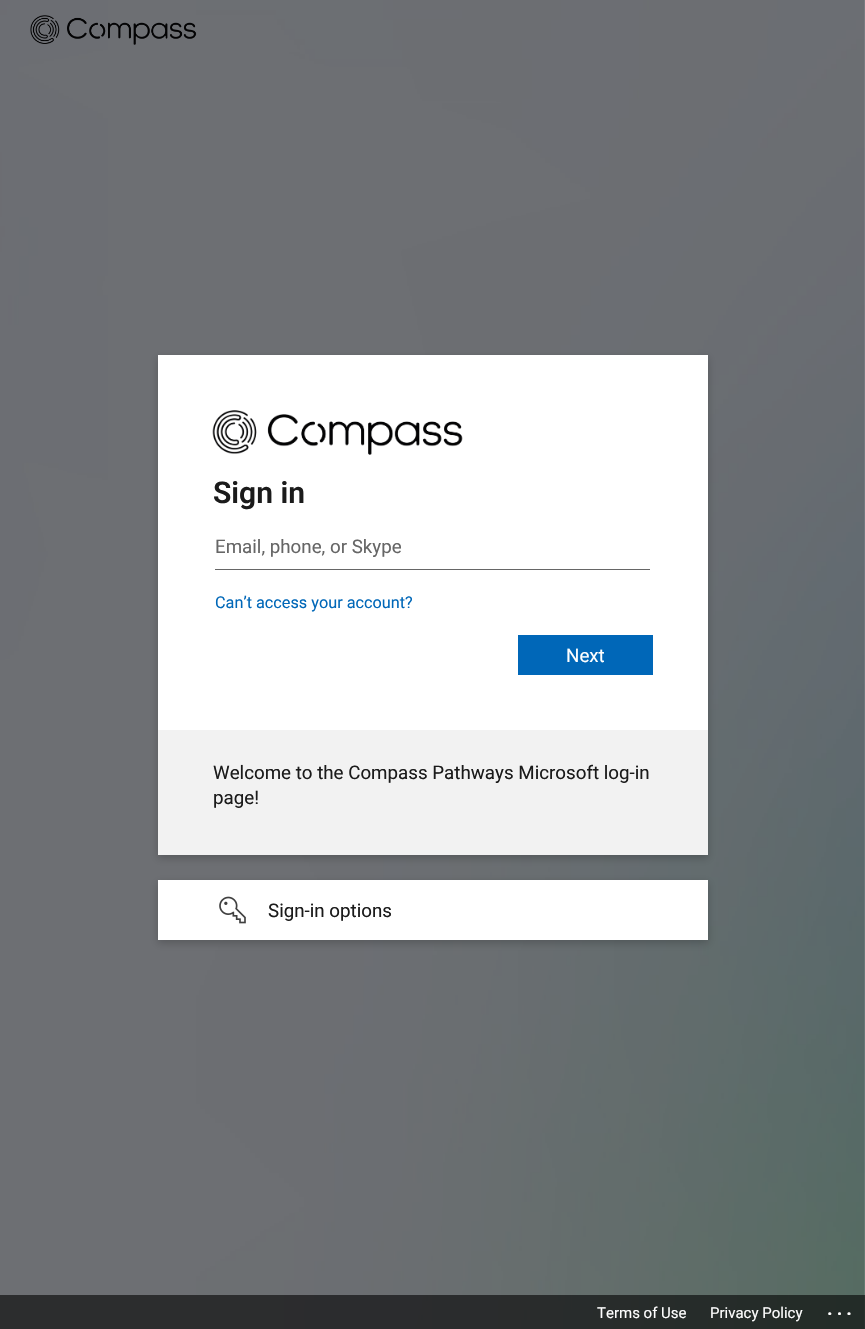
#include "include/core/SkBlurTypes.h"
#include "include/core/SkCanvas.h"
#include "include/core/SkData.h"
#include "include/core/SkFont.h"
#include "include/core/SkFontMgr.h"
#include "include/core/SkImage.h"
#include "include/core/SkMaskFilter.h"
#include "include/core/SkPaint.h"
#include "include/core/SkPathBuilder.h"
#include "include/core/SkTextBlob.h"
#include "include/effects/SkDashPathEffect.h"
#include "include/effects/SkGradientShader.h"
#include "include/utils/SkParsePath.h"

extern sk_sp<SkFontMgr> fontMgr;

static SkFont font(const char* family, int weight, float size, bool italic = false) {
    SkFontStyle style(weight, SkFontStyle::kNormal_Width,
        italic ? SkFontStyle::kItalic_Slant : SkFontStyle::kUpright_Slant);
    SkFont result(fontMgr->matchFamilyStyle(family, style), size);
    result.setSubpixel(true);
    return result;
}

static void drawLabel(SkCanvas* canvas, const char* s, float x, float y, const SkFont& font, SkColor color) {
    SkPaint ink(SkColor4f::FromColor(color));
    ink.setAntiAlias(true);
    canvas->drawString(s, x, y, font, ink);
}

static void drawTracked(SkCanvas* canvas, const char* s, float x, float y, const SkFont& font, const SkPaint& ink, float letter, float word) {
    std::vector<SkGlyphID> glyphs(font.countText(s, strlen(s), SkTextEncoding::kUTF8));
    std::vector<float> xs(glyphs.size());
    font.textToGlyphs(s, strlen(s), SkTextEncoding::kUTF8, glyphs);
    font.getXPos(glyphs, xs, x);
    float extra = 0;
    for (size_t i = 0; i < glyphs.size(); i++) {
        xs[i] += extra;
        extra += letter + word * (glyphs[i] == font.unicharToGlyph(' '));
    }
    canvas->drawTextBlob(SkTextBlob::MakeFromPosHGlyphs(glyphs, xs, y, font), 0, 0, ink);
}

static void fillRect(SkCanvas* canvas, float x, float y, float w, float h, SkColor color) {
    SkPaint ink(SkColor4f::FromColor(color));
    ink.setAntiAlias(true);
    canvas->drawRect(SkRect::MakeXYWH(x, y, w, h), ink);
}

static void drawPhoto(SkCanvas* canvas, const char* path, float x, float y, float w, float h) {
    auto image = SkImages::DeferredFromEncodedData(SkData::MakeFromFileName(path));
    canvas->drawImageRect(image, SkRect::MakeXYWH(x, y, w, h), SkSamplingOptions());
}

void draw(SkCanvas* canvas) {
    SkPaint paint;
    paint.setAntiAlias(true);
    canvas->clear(0xFFFFFFFF);
    drawPhoto(canvas, "assets/img1.png", 0, 0, 865, 1329);
    drawPhoto(canvas, "assets/img2.png", 30, 15, 167, 30);
    paint.setColor(0x33000000);
    paint.setMaskFilter(SkMaskFilter::MakeBlur(kNormal_SkBlurStyle, 4));
    canvas->drawRect(SkRect::MakeXYWH(158, 358, 550, 500), paint);
    paint.setMaskFilter(nullptr);
    fillRect(canvas, 158, 355, 550, 375, 0xFFFFFFFF);
    drawPhoto(canvas, "assets/img3.png", 212, 410, 251, 45);
    SkFont font1 = font("Roboto", 600, 30);
    drawLabel(canvas, "Sign in", 213, 503, font1, 0xFF1B1B1B);
    fillRect(canvas, 215, 569, 435, 1, 0xFF666666);
    SkFont font2 = font("Roboto", 400, 18.75f);
    drawLabel(canvas, "Email, phone, or Skype", 215, 553, font2, 0xFF666666);
    SkFont font3 = font("Roboto", 400, 16.25f);
    drawLabel(canvas, "Can’t access your account?", 215, 608, font3, 0xFF0067B8);
    fillRect(canvas, 518, 635, 135, 40, 0xFF0067B8);
    drawLabel(canvas, "Next", 566, 662, font2, 0xFFFFFFFF);
    fillRect(canvas, 158, 730, 550, 125, 0xFFF2F2F2);
    drawLabel(canvas, "Welcome to the Compass Pathways Microsoft log-in", 213, 779, font2, 0xFF1B1B1B);
    drawLabel(canvas, "page!", 213, 804, font2, 0xFF1B1B1B);
    paint.setMaskFilter(SkMaskFilter::MakeBlur(kNormal_SkBlurStyle, 4));
    canvas->drawRect(SkRect::MakeXYWH(158, 883, 550, 60), paint);
    paint.setMaskFilter(nullptr);
    fillRect(canvas, 158, 880, 550, 60, 0xFFFFFFFF);
    drawPhoto(canvas, "assets/img4.png", 219, 896, 27, 28);
    drawLabel(canvas, "Sign-in options", 268, 917, font2, 0xFF1B1B1B);
    fillRect(canvas, 0, 1295, 865, 34, 0x99000000);
    SkFont font4 = font("Roboto", 400, 15);
    drawLabel(canvas, "Terms of Use", 597, 1318, font4, 0xFFFFFFFF);
    drawLabel(canvas, "Privacy Policy", 710, 1318, font4, 0xFFFFFFFF);
    SkFont font5 = font("Roboto", 600, 20);
    paint.setColor(0xFFFFFFFF);
    drawTracked(canvas, "...", 827, 1315, font5, paint, 4, 0);
}
